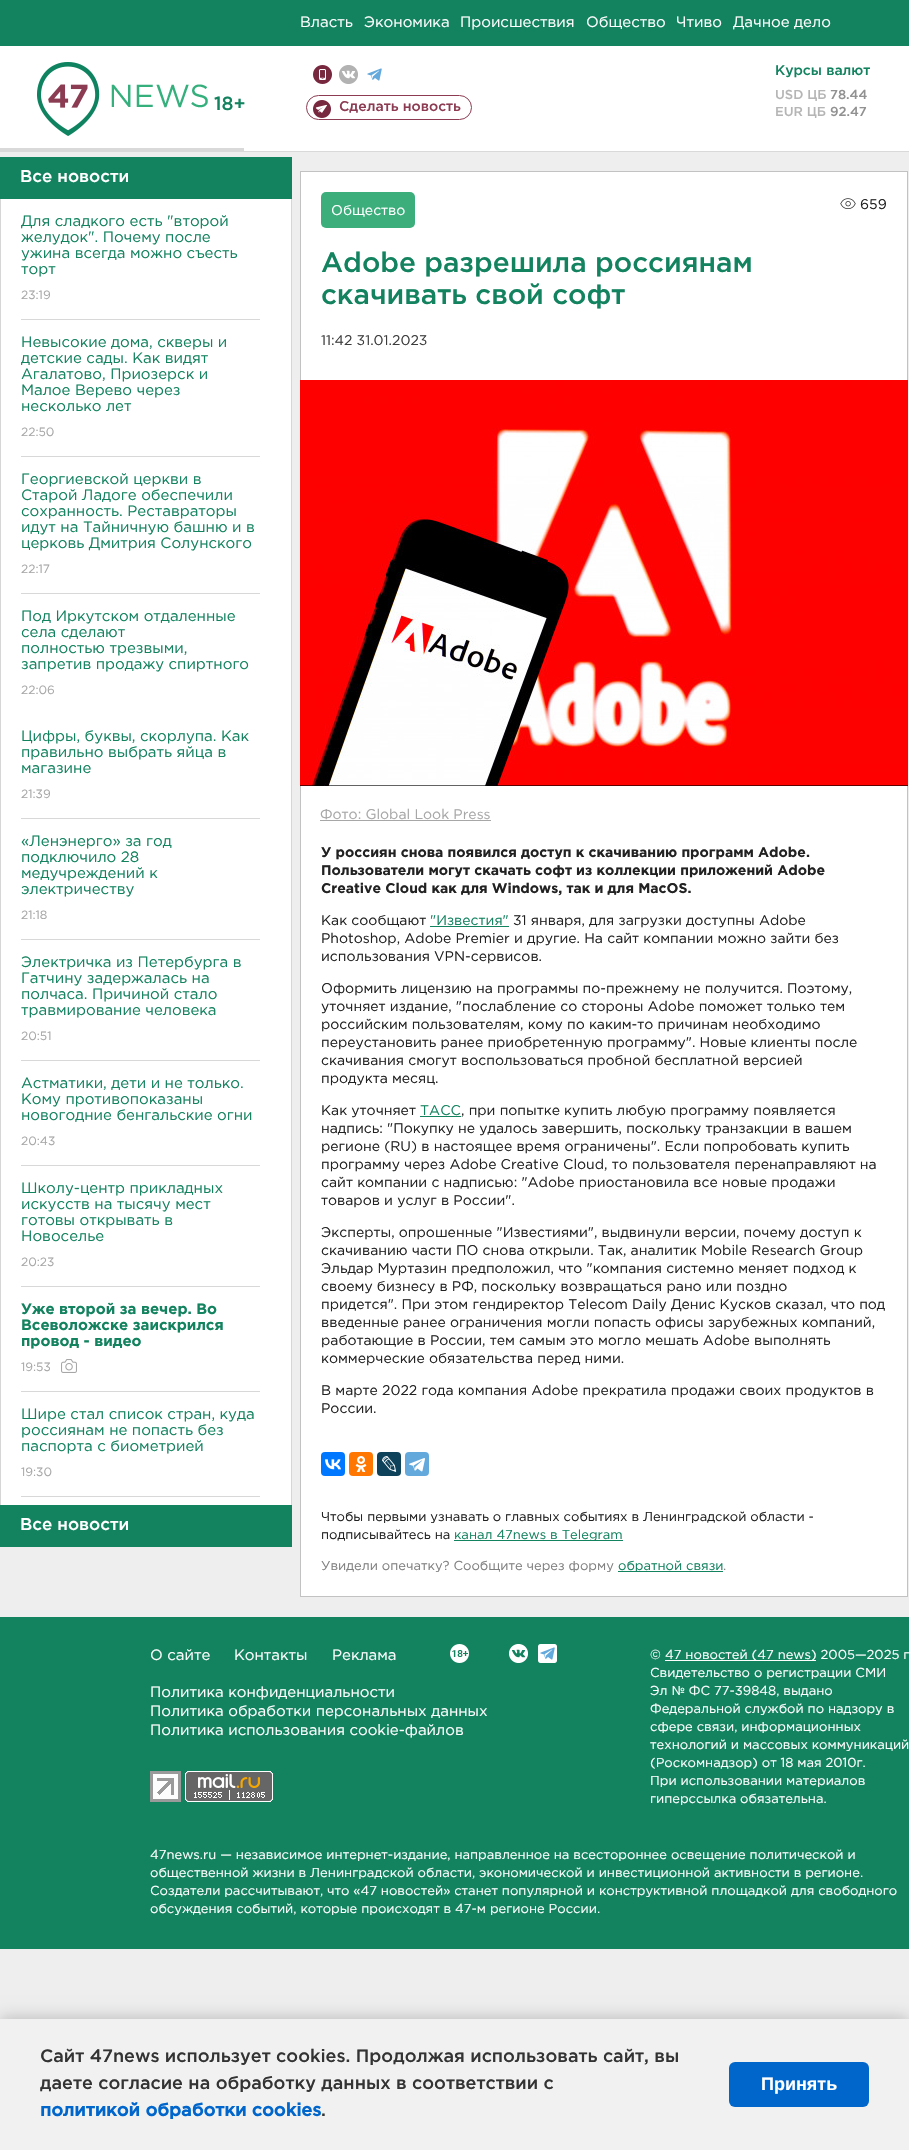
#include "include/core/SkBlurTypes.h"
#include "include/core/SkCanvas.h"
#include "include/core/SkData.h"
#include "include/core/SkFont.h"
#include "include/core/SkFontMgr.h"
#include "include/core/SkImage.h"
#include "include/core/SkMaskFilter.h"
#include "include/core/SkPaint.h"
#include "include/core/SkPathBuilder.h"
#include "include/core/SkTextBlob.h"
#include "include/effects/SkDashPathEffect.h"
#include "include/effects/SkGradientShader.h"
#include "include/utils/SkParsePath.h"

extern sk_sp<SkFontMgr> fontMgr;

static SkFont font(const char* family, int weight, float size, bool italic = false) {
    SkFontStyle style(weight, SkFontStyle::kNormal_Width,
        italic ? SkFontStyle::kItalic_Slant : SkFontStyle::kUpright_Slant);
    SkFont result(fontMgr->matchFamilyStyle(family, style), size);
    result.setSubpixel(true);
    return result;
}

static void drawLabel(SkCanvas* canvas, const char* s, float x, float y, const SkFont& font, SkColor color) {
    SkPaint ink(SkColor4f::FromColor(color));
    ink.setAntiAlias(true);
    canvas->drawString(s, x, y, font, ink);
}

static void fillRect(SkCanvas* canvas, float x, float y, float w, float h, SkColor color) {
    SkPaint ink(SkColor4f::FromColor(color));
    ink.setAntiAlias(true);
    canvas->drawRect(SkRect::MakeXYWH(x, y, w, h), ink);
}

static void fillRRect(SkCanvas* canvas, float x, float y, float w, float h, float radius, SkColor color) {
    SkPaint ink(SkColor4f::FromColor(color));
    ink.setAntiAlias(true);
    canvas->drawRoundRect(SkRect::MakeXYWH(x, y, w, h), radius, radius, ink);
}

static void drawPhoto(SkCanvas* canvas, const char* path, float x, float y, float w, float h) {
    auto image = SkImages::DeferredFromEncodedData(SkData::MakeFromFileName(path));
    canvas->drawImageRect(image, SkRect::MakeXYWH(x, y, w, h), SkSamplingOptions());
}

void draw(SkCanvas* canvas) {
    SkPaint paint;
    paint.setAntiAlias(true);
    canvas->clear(0xFFEEEEEE);
    fillRect(canvas, 0, 0, 909, 46, 0xFF13825F);
    SkFont font1 = font("Gotham", 400, 15);
    drawLabel(canvas, "Власть", 300, 27, font1, 0xFFFFFFFF);
    drawLabel(canvas, "Экономика", 364, 27, font1, 0xFFFFFFFF);
    drawLabel(canvas, "Происшествия", 460, 27, font1, 0xFFFFFFFF);
    drawLabel(canvas, "Общество", 586, 27, font1, 0xFFFFFFFF);
    drawLabel(canvas, "Чтиво", 676, 27, font1, 0xFFFFFFFF);
    drawLabel(canvas, "Дачное дело", 733, 27, font1, 0xFFFFFFFF);
    fillRect(canvas, 0, 46, 909, 105, 0xFFFFFFFF);
    fillRect(canvas, 0, 151, 909, 1, 0xFFDAD9D9);
    fillRect(canvas, 0, 148, 244, 3, 0xFFDAD9D9);
    drawPhoto(canvas, "assets/img1.png", 37, 62, 171, 74);
    SkFont font2 = font("Gotham", 500, 14);
    drawLabel(canvas, "Курсы валют", 775, 75, font2, 0xFF13825F);
    SkFont font3 = font("Gotham", 500, 13);
    drawLabel(canvas, "USD ЦБ", 775, 99, font3, 0xFFB5B5B5);
    drawLabel(canvas, "78.44", 830, 99, font3, 0xFF919191);
    drawLabel(canvas, "EUR ЦБ", 775, 116, font3, 0xFFB5B5B5);
    drawLabel(canvas, "92.47", 830, 116, font3, 0xFF919191);
    SkFont font4 = font("Gotham", 500, 19);
    drawLabel(canvas, "18+", 214, 110, font4, 0xFF13825F);
    drawPhoto(canvas, "assets/img2.png", 313, 65, 19, 19);
    drawPhoto(canvas, "assets/img3.png", 339, 65, 19, 19);
    drawPhoto(canvas, "assets/img4.png", 367, 68, 15, 13);
    drawPhoto(canvas, "assets/img5.png", 313, 100, 18, 18);
    paint.setStroke(true);
    paint.setStrokeWidth(1);
    paint.setColor(0xFF8C3B52);
    canvas->drawRoundRect(SkRect::MakeXYWH(306.5f, 95.5f, 165, 24), 12, 12, paint);
    drawLabel(canvas, "Сделать новость", 339, 111, font2, 0xFF8C3B52);
    fillRect(canvas, 0, 157, 292, 42, 0xFF13825F);
    SkFont font5 = font("Gotham", 500, 17);
    drawLabel(canvas, "Все новости", 20, 182, font5, 0xFFFFFFFF);
    fillRect(canvas, 1, 199, 290, 1306, 0xFFFFFFFF);
    fillRect(canvas, 291, 199, 1, 1306, 0xFFD6D6D6);
    fillRect(canvas, 0, 199, 1, 1306, 0xFFD6D6D6);
    fillRect(canvas, 21, 319, 239, 1, 0xFFD8D8D8);
    drawLabel(canvas, "Для сладкого есть \"второй", 21, 226, font1, 0xFF13825F);
    drawLabel(canvas, "желудок\". Почему после", 21, 242, font1, 0xFF13825F);
    drawLabel(canvas, "ужина всегда можно съесть", 21, 258, font1, 0xFF13825F);
    drawLabel(canvas, "торт", 21, 274, font1, 0xFF13825F);
    SkFont font6 = font("Gotham", 400, 12);
    drawLabel(canvas, "23:19", 21, 299, font6, 0xFFA7A7A7);
    fillRect(canvas, 21, 456, 239, 1, 0xFFD8D8D8);
    drawLabel(canvas, "Невысокие дома, скверы и", 21, 347, font1, 0xFF13825F);
    drawLabel(canvas, "детские сады. Как видят", 21, 363, font1, 0xFF13825F);
    drawLabel(canvas, "Агалатово, Приозерск и", 21, 379, font1, 0xFF13825F);
    drawLabel(canvas, "Малое Верево через", 21, 395, font1, 0xFF13825F);
    drawLabel(canvas, "несколько лет", 21, 411, font1, 0xFF13825F);
    drawLabel(canvas, "22:50", 21, 436, font6, 0xFFA7A7A7);
    fillRect(canvas, 21, 593, 239, 1, 0xFFD8D8D8);
    drawLabel(canvas, "Георгиевской церкви в", 21, 484, font1, 0xFF13825F);
    drawLabel(canvas, "Старой Ладоге обеспечили", 21, 500, font1, 0xFF13825F);
    drawLabel(canvas, "сохранность. Реставраторы", 21, 516, font1, 0xFF13825F);
    drawLabel(canvas, "идут на Тайничную башню и в", 21, 532, font1, 0xFF13825F);
    drawLabel(canvas, "церковь Дмитрия Солунского", 21, 548, font1, 0xFF13825F);
    drawLabel(canvas, "22:17", 21, 573, font6, 0xFFA7A7A7);
    drawLabel(canvas, "Под Иркутском отдаленные", 21, 621, font1, 0xFF13825F);
    drawLabel(canvas, "села сделают", 21, 637, font1, 0xFF13825F);
    drawLabel(canvas, "полностью трезвыми,", 21, 653, font1, 0xFF13825F);
    drawLabel(canvas, "запретив продажу спиртного", 21, 669, font1, 0xFF13825F);
    drawLabel(canvas, "22:06", 21, 694, font6, 0xFFA7A7A7);
    fillRect(canvas, 21, 818, 239, 1, 0xFFD8D8D8);
    drawLabel(canvas, "Цифры, буквы, скорлупа. Как", 21, 741, font1, 0xFF13825F);
    drawLabel(canvas, "правильно выбрать яйца в", 21, 757, font1, 0xFF13825F);
    drawLabel(canvas, "магазине", 21, 773, font1, 0xFF13825F);
    drawLabel(canvas, "21:39", 21, 798, font6, 0xFFA7A7A7);
    fillRect(canvas, 21, 939, 239, 1, 0xFFD8D8D8);
    drawLabel(canvas, "«Ленэнерго» за год", 21, 846, font1, 0xFF13825F);
    drawLabel(canvas, "подключило 28", 21, 862, font1, 0xFF13825F);
    drawLabel(canvas, "медучреждений к", 21, 878, font1, 0xFF13825F);
    drawLabel(canvas, "электричеству", 21, 894, font1, 0xFF13825F);
    drawLabel(canvas, "21:18", 21, 919, font6, 0xFFA7A7A7);
    fillRect(canvas, 21, 1060, 239, 1, 0xFFD8D8D8);
    drawLabel(canvas, "Электричка из Петербурга в", 21, 967, font1, 0xFF13825F);
    drawLabel(canvas, "Гатчину задержалась на", 21, 983, font1, 0xFF13825F);
    drawLabel(canvas, "полчаса. Причиной стало", 21, 999, font1, 0xFF13825F);
    drawLabel(canvas, "травмирование человека", 21, 1015, font1, 0xFF13825F);
    drawLabel(canvas, "20:51", 21, 1040, font6, 0xFFA7A7A7);
    fillRect(canvas, 21, 1165, 239, 1, 0xFFD8D8D8);
    drawLabel(canvas, "Астматики, дети и не только.", 21, 1088, font1, 0xFF13825F);
    drawLabel(canvas, "Кому противопоказаны", 21, 1104, font1, 0xFF13825F);
    drawLabel(canvas, "новогодние бенгальские огни", 21, 1120, font1, 0xFF13825F);
    drawLabel(canvas, "20:43", 21, 1145, font6, 0xFFA7A7A7);
    fillRect(canvas, 21, 1286, 239, 1, 0xFFD8D8D8);
    drawLabel(canvas, "Школу-центр прикладных", 21, 1193, font1, 0xFF13825F);
    drawLabel(canvas, "искусств на тысячу мест", 21, 1209, font1, 0xFF13825F);
    drawLabel(canvas, "готовы открывать в", 21, 1225, font1, 0xFF13825F);
    drawLabel(canvas, "Новоселье", 21, 1241, font1, 0xFF13825F);
    drawLabel(canvas, "20:23", 21, 1266, font6, 0xFFA7A7A7);
    fillRect(canvas, 21, 1391, 239, 1, 0xFFD8D8D8);
    SkFont font7 = font("Gotham", 700, 15);
    drawLabel(canvas, "Уже второй за вечер. Во", 21, 1314, font7, 0xFF13825F);
    drawLabel(canvas, "Всеволожске заискрился", 21, 1330, font7, 0xFF13825F);
    drawLabel(canvas, "провод - видео", 21, 1346, font7, 0xFF13825F);
    drawLabel(canvas, "19:53", 21, 1371, font6, 0xFFA7A7A7);
    drawPhoto(canvas, "assets/img6.png", 61, 1359, 16, 14);
    fillRect(canvas, 21, 1496, 239, 1, 0xFFD8D8D8);
    drawLabel(canvas, "Шире стал список стран, куда", 21, 1419, font1, 0xFF13825F);
    drawLabel(canvas, "россиянам не попасть без", 21, 1435, font1, 0xFF13825F);
    drawLabel(canvas, "паспорта с биометрией", 21, 1451, font1, 0xFF13825F);
    drawLabel(canvas, "19:30", 21, 1476, font6, 0xFFA7A7A7);
    fillRect(canvas, 0, 1505, 292, 42, 0xFF13825F);
    drawLabel(canvas, "Все новости", 20, 1530, font5, 0xFFFFFFFF);
    paint.setStroke(false);
    paint.setColor(0xFFFFFFFF);
    canvas->drawRect(SkRect::MakeXYWH(300.5f, 171.5f, 607, 1425), paint);
    paint.setStroke(true);
    paint.setColor(0xFFC2C2C2);
    canvas->drawRect(SkRect::MakeXYWH(300.5f, 171.5f, 607, 1425), paint);
    fillRRect(canvas, 321, 192, 94, 36, 5, 0xFF3BAE7C);
    SkFont font8 = font("Gotham", 400, 14);
    drawLabel(canvas, "Общество", 331, 215, font8, 0xFFFFFFFF);
    drawPhoto(canvas, "assets/img7.png", 840, 198, 16, 11);
    drawLabel(canvas, "659", 860, 209, font8, 0xFF222222);
    SkFont font9 = font("Gotham", 500, 28);
    drawLabel(canvas, "Adobe разрешила россиянам", 321, 272, font9, 0xFF13825F);
    drawLabel(canvas, "скачивать свой софт", 321, 304, font9, 0xFF13825F);
    drawLabel(canvas, "11:42 31.01.2023", 321, 345, font8, 0xFF3C3C3C);
    drawPhoto(canvas, "assets/img8.png", 300, 380, 608, 406);
    drawLabel(canvas, "Фото: Global Look Press", 320, 819, font8, 0xFFA7A7A7);
    fillRect(canvas, 320, 820, 171, 1, 0xFFA7A7A7);
    SkFont font10 = font("Gotham", 700, 14);
    drawLabel(canvas, "У россиян снова появился доступ к скачиванию программ Adobe.", 321, 857, font10, 0xFF222222);
    drawLabel(canvas, "Пользователи могут скачать софт из коллекции приложений Adobe", 321, 875, font10, 0xFF222222);
    drawLabel(canvas, "Creative Cloud как для Windows, так и для MacOS.", 321, 893, font10, 0xFF222222);
    drawLabel(canvas, "Как сообщают", 321, 925, font8, 0xFF222222);
    drawLabel(canvas, "\"Известия\"", 430, 925, font8, 0xFF13825F);
    fillRect(canvas, 430, 926, 79, 1, 0xFF13825F);
    drawLabel(canvas, "31 января, для загрузки доступны Adobe", 513, 925, font8, 0xFF222222);
    drawLabel(canvas, "Photoshop, Adobe Premier и другие. На сайт компании можно зайти без", 321, 943, font8, 0xFF222222);
    drawLabel(canvas, "использования VPN-сервисов.", 321, 961, font8, 0xFF222222);
    drawLabel(canvas, "Оформить лицензию на программы по-прежнему не получится. Поэтому,", 321, 993, font8, 0xFF222222);
    drawLabel(canvas, "уточняет издание, \"послабление со стороны Adobe поможет только тем", 321, 1011, font8, 0xFF222222);
    drawLabel(canvas, "российским пользователям, кому по каким-то причинам необходимо", 321, 1029, font8, 0xFF222222);
    drawLabel(canvas, "переустановить ранее приобретенную программу\". Новые клиенты после", 321, 1047, font8, 0xFF222222);
    drawLabel(canvas, "скачивания смогут воспользоваться пробной бесплатной версией", 321, 1065, font8, 0xFF222222);
    drawLabel(canvas, "продукта месяц.", 321, 1083, font8, 0xFF222222);
    drawLabel(canvas, "Как уточняет", 321, 1115, font8, 0xFF222222);
    drawLabel(canvas, "ТАСС", 420, 1115, font8, 0xFF13825F);
    fillRect(canvas, 420, 1116, 41, 1, 0xFF13825F);
    drawLabel(canvas, ", при попытке купить любую программу появляется", 461, 1115, font8, 0xFF222222);
    drawLabel(canvas, "надпись: \"Покупку не удалось завершить, поскольку транзакции в вашем", 321, 1133, font8, 0xFF222222);
    drawLabel(canvas, "регионе (RU) в настоящее время ограничены\". Если попробовать купить", 321, 1151, font8, 0xFF222222);
    drawLabel(canvas, "программу через Adobe Creative Cloud, то пользователя перенаправляют на", 321, 1169, font8, 0xFF222222);
    drawLabel(canvas, "сайт компании с надписью: \"Adobe приостановила все новые продажи", 321, 1187, font8, 0xFF222222);
    drawLabel(canvas, "товаров и услуг в России\".", 321, 1205, font8, 0xFF222222);
    drawLabel(canvas, "Эксперты, опрошенные \"Известиями\", выдвинули версии, почему доступ к", 321, 1237, font8, 0xFF222222);
    drawLabel(canvas, "скачиванию части ПО снова открыли. Так, аналитик Mobile Research Group", 321, 1255, font8, 0xFF222222);
    drawLabel(canvas, "Эльдар Муртазин предположил, что \"компания системно меняет подход к", 321, 1273, font8, 0xFF222222);
    drawLabel(canvas, "своему бизнесу в РФ, поскольку возвращаться рано или поздно", 321, 1291, font8, 0xFF222222);
    drawLabel(canvas, "придется\". При этом гендиректор Telecom Daily Денис Кусков сказал, что под", 321, 1309, font8, 0xFF222222);
    drawLabel(canvas, "введенные ранее ограничения могли попасть офисы зарубежных компаний,", 321, 1327, font8, 0xFF222222);
    drawLabel(canvas, "работающие в России, тем самым это могло мешать Adobe выполнять", 321, 1345, font8, 0xFF222222);
    drawLabel(canvas, "коммерческие обязательства перед ними.", 321, 1363, font8, 0xFF222222);
    drawLabel(canvas, "В марте 2022 года компания Adobe прекратила продажи своих продуктов в", 321, 1395, font8, 0xFF222222);
    drawLabel(canvas, "России.", 321, 1413, font8, 0xFF222222);
    fillRRect(canvas, 321, 1452, 24, 24, 4, 0xFF0077FF);
    drawPhoto(canvas, "assets/img9.png", 325, 1459, 16, 11);
    fillRRect(canvas, 349, 1452, 24, 24, 4, 0xFFFF7700);
    drawPhoto(canvas, "assets/img10.png", 355, 1456, 12, 16);
    fillRRect(canvas, 377, 1452, 24, 24, 4, 0xFF0D425A);
    drawPhoto(canvas, "assets/img11.png", 382, 1456, 15, 16);
    fillRRect(canvas, 405, 1452, 24, 24, 4, 0xFF64A9DC);
    drawPhoto(canvas, "assets/img12.png", 409, 1458, 16, 14);
    SkFont font11 = font("Gotham", 400, 13);
    drawLabel(canvas, "Чтобы первыми узнавать о главных событиях в Ленинградской области -", 321, 1521, font11, 0xFF222222);
    drawLabel(canvas, "подписывайтесь на", 321, 1539, font11, 0xFF222222);
    fillRect(canvas, 454, 1540, 169, 1, 0xFF13825F);
    drawLabel(canvas, "канал 47news в Telegram", 454, 1539, font11, 0xFF13825F);
    drawLabel(canvas, "Увидели опечатку? Сообщите через форму", 321, 1570, font11, 0xFF808080);
    fillRect(canvas, 618, 1571, 105, 1, 0xFF13825F);
    drawLabel(canvas, "обратной связи", 618, 1570, font11, 0xFF13825F);
    drawLabel(canvas, ".", 723, 1570, font11, 0xFF808080);
    fillRect(canvas, 0, 1617, 909, 332, 0xFF13825F);
    drawLabel(canvas, "О сайте", 150, 1660, font1, 0xFFFFFFFF);
    drawLabel(canvas, "Контакты", 234, 1660, font1, 0xFFFFFFFF);
    drawLabel(canvas, "Реклама", 332, 1660, font1, 0xFFFFFFFF);
    drawLabel(canvas, "Политика конфиденциальности", 150, 1697, font1, 0xFFFFFFFF);
    drawLabel(canvas, "Политика обработки персональных данных", 150, 1716, font1, 0xFFFFFFFF);
    drawLabel(canvas, "Политика использования cookie-файлов", 150, 1735, font1, 0xFFFFFFFF);
    drawPhoto(canvas, "assets/img13.png", 450, 1644, 19, 19);
    drawPhoto(canvas, "assets/img14.png", 509, 1644, 19, 19);
    drawPhoto(canvas, "assets/img15.png", 538, 1644, 19, 19);
    drawPhoto(canvas, "assets/img16.png", 150, 1771, 31, 31);
    drawPhoto(canvas, "assets/img17.png", 185, 1771, 88, 31);
    drawLabel(canvas, "©", 650, 1659, font11, 0xFFFFFFFF);
    fillRect(canvas, 665, 1660, 151, 1, 0xFFFFFFFF);
    drawLabel(canvas, "47 новостей (47 news) 2005—2025 г", 665, 1659, font11, 0xFFFFFFFF);
    drawLabel(canvas, "Свидетельство о регистрации СМИ", 650, 1677, font11, 0xFFFFFFFF);
    drawLabel(canvas, "Эл № ФС 77-39848, выдано", 650, 1695, font11, 0xFFFFFFFF);
    drawLabel(canvas, "Федеральной службой по надзору в", 650, 1713, font11, 0xFFFFFFFF);
    drawLabel(canvas, "сфере связи, информационных", 650, 1731, font11, 0xFFFFFFFF);
    drawLabel(canvas, "технологий и массовых коммуникаций", 650, 1749, font11, 0xFFFFFFFF);
    drawLabel(canvas, "(Роскомнадзор) от 18 мая 2010г.", 650, 1767, font11, 0xFFFFFFFF);
    drawLabel(canvas, "При использовании материалов", 650, 1785, font11, 0xFFFFFFFF);
    drawLabel(canvas, "гиперссылка обязательна.", 650, 1803, font11, 0xFFFFFFFF);
    drawLabel(canvas, "47news.ru — независимое интернет-издание, направленное на всестороннее освещение политической и", 150, 1859, font11, 0xFFFFFFFF);
    drawLabel(canvas, "общественной жизни в Ленинградской области, экономической и инвестиционной активности в регионе.", 150, 1877, font11, 0xFFFFFFFF);
    drawLabel(canvas, "Создатели рассчитывают, что «47 новостей» станет популярной и конструктивной площадкой для свободного", 150, 1895, font11, 0xFFFFFFFF);
    drawLabel(canvas, "обсуждения событий, которые происходят в 47-м регионе России.", 150, 1913, font11, 0xFFFFFFFF);
    paint.setStroke(false);
    paint.setColor(0x33000000);
    paint.setMaskFilter(SkMaskFilter::MakeBlur(kNormal_SkBlurStyle, 7.5f));
    canvas->drawRect(SkRect::MakeXYWH(0, 2017, 909, 131), paint);
    paint.setMaskFilter(nullptr);
    fillRect(canvas, 0, 2019, 909, 131, 0xFFF1F1F1);
    SkFont font12 = font("Gotham", 500, 18);
    drawLabel(canvas, "Сайт 47news использует cookies. Продолжая использовать сайт, вы", 40, 2062, font12, 0xFF333333);
    drawLabel(canvas, "даете согласие на обработку данных в соответствии с", 40, 2089, font12, 0xFF333333);
    SkFont font13 = font("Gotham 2", 700, 18);
    drawLabel(canvas, "политикой обработки cookies", 40, 2116, font13, 0xFF0066CC);
    drawLabel(canvas, ".", 321, 2116, font12, 0xFF333333);
    fillRRect(canvas, 729, 2062, 140, 45, 6, 0xFF0066CC);
    SkFont font14 = font("Liberation Sans", 700, 18);
    drawLabel(canvas, "Принять", 761, 2090, font14, 0xFFFFFFFF);
}
